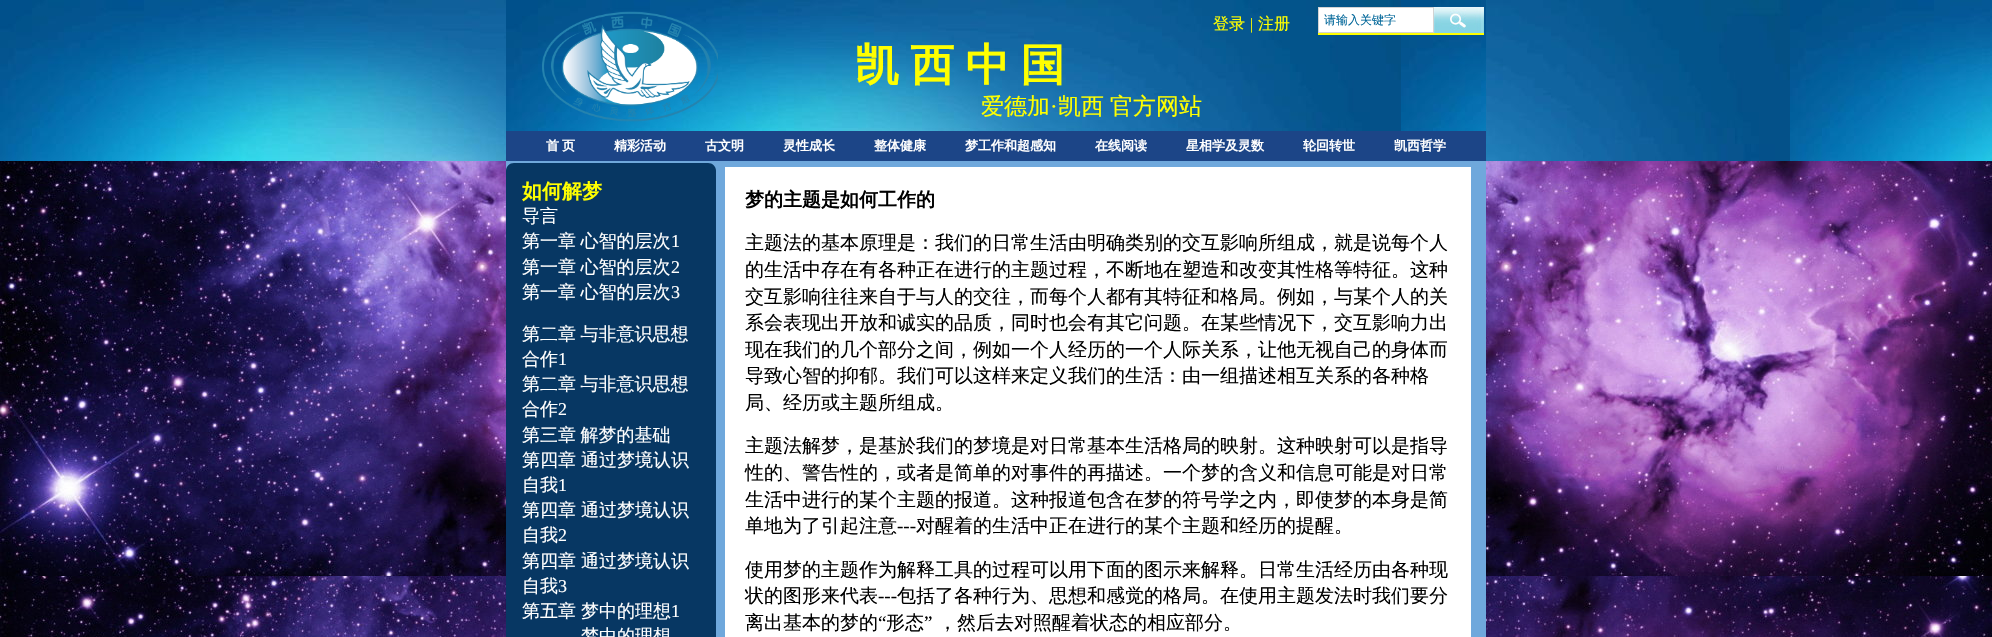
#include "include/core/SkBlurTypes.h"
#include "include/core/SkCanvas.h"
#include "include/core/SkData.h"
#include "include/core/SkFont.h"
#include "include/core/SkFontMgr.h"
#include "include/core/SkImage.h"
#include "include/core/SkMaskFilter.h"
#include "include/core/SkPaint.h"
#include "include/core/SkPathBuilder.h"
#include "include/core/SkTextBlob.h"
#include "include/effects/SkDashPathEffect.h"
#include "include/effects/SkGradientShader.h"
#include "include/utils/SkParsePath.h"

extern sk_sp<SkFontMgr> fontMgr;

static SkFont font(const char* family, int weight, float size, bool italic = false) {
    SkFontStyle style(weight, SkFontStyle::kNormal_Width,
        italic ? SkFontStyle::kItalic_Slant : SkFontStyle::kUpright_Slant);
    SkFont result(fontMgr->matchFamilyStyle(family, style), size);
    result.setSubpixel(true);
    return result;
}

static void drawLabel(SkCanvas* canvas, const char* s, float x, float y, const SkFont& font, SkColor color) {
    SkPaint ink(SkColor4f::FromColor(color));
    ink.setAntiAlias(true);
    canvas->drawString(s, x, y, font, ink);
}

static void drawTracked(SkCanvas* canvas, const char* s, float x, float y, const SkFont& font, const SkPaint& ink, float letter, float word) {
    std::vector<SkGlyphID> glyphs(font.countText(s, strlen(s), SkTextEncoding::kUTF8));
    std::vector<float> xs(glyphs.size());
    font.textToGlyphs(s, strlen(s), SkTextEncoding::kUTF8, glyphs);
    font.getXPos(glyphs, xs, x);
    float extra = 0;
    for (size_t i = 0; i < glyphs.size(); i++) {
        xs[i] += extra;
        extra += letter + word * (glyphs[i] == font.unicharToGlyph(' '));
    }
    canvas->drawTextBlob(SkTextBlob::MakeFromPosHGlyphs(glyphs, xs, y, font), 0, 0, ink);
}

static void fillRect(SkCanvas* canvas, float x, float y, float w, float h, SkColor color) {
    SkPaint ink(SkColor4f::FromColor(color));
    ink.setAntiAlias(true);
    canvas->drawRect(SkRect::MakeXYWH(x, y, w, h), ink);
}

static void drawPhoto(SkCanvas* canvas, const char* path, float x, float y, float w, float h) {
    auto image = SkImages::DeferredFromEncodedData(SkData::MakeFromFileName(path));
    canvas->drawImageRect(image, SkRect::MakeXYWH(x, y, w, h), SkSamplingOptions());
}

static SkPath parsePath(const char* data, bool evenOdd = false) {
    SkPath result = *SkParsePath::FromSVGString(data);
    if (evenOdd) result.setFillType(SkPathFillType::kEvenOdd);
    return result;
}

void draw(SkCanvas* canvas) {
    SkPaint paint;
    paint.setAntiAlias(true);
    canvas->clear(0xFFFFFFFF);
    drawPhoto(canvas, "assets/img5.png", 0, 161, 1992, 476);
    fillRect(canvas, 506, 161, 980, 476, 0xFF6FA8DC);
    drawPhoto(canvas, "assets/img1.png", 0, 0, 1992, 161);
    drawPhoto(canvas, "assets/img2.png", 506, 0, 980, 131);
    drawPhoto(canvas, "assets/img3.png", 542, 11, 176, 111);
    SkFont font1 = font("WenQuanYi Zen Hei", 500, 16);
    drawLabel(canvas, "登录", 1213, 29, font1, 0xFFFFFF00);
    SkFont font2 = font("Liberation Serif", 400, 16);
    drawLabel(canvas, "|", 1250, 29, font2, 0xFFFFFF00);
    drawLabel(canvas, "注册", 1258, 29, font1, 0xFFFFFF00);
    fillRect(canvas, 1318, 33, 166, 2, 0xFFFFFF00);
    paint.setColor(0xFFFFFFFF);
    canvas->drawRect(SkRect::MakeXYWH(1318.5f, 7.5f, 115, 25), paint);
    paint.setStroke(true);
    paint.setStrokeWidth(1);
    paint.setColor(0xFFD3D3D3);
    canvas->drawRect(SkRect::MakeXYWH(1318.5f, 7.5f, 115, 25), paint);
    SkFont font3 = font("WenQuanYi Zen Hei", 500, 12);
    drawLabel(canvas, "请输入关键字", 1324, 24, font3, 0xFF006699);
    drawPhoto(canvas, "assets/img4.png", 1434, 7, 50, 26);
    SkFont font4 = font("WenQuanYi Zen Hei", 700, 44);
    paint.setStroke(false);
    paint.setColor(0xFFFFFF00);
    drawTracked(canvas, "凯 西 中 国", 855, 80, font4, paint, 0, -2);
    SkFont font5 = font("WenQuanYi Zen Hei", 500, 23);
    drawLabel(canvas, "爱德加", 981, 114, font5, 0xFFFFFF00);
    SkFont font6 = font("Liberation Serif", 400, 23);
    drawLabel(canvas, "·", 1050, 114, font6, 0xFFFFFF00);
    drawTracked(canvas, "凯西 官方网站", 1058, 114, font5, paint, 0, -1);
    fillRect(canvas, 506, 131, 980, 30, 0xFF1C4587);
    SkFont font7 = font("WenQuanYi Zen Hei", 700, 13);
    drawLabel(canvas, "首", 546, 150, font7, 0xFFFFFFFF);
    drawLabel(canvas, "页", 562, 150, font7, 0xFFFFFFFF);
    drawLabel(canvas, "精彩活动", 614, 150, font7, 0xFFFFFFFF);
    drawLabel(canvas, "古文明", 705, 150, font7, 0xFFFFFFFF);
    drawLabel(canvas, "灵性成长", 783, 150, font7, 0xFFFFFFFF);
    drawLabel(canvas, "整体健康", 874, 150, font7, 0xFFFFFFFF);
    drawLabel(canvas, "梦工作和超感知", 965, 150, font7, 0xFFFFFFFF);
    drawLabel(canvas, "在线阅读", 1095, 150, font7, 0xFFFFFFFF);
    drawLabel(canvas, "星相学及灵数", 1186, 150, font7, 0xFFFFFFFF);
    drawLabel(canvas, "轮回转世", 1303, 150, font7, 0xFFFFFFFF);
    drawLabel(canvas, "凯西哲学", 1394, 150, font7, 0xFFFFFFFF);
    paint.setColor(0xFF073763);
    canvas->drawPath(parsePath("M514 163H708C712.5 163 716 166.5 716 171V637H506V171C506 166.5 509.5 163 514 163Z"), paint);
    SkFont font8 = font("WenQuanYi Zen Hei", 700, 20);
    drawLabel(canvas, "如何解梦", 522, 198, font8, 0xFFFFFF00);
    SkFont font9 = font("WenQuanYi Zen Hei", 500, 18);
    drawLabel(canvas, "导言", 522, 222, font9, 0xFFFFFFFF);
    paint.setColor(0xFFFFFFFF);
    drawTracked(canvas, "第一章 心智的层次", 522, 247, font9, paint, 0, -1);
    SkFont font10 = font("Liberation Serif", 400, 18);
    drawLabel(canvas, "1", 671, 247, font10, 0xFFFFFFFF);
    drawTracked(canvas, "第一章 心智的层次", 522, 273, font9, paint, 0, -1);
    drawLabel(canvas, "2", 671, 273, font10, 0xFFFFFFFF);
    drawTracked(canvas, "第一章 心智的层次", 522, 298, font9, paint, 0, -1);
    drawLabel(canvas, "3", 671, 298, font10, 0xFFFFFFFF);
    drawTracked(canvas, "第二章 与非意识思想", 522, 340, font9, paint, 0, -1);
    drawLabel(canvas, "合作", 522, 365, font9, 0xFFFFFFFF);
    drawLabel(canvas, "1", 558, 365, font10, 0xFFFFFFFF);
    drawTracked(canvas, "第二章 与非意识思想", 522, 390, font9, paint, 0, -1);
    drawLabel(canvas, "合作", 522, 415, font9, 0xFFFFFFFF);
    drawLabel(canvas, "2", 558, 415, font10, 0xFFFFFFFF);
    drawTracked(canvas, "第三章 解梦的基础", 522, 441, font9, paint, 0, -1);
    drawLabel(canvas, "第四章", 522, 466, font9, 0xFFFFFFFF);
    drawLabel(canvas, "通过梦境认识", 581, 466, font9, 0xFFFFFFFF);
    drawLabel(canvas, "自我", 522, 491, font9, 0xFFFFFFFF);
    drawLabel(canvas, "1", 558, 491, font10, 0xFFFFFFFF);
    drawLabel(canvas, "第四章", 522, 516, font9, 0xFFFFFFFF);
    drawLabel(canvas, "通过梦境认识", 581, 516, font9, 0xFFFFFFFF);
    drawLabel(canvas, "自我", 522, 541, font9, 0xFFFFFFFF);
    drawLabel(canvas, "2", 558, 541, font10, 0xFFFFFFFF);
    drawLabel(canvas, "第四章", 522, 567, font9, 0xFFFFFFFF);
    drawLabel(canvas, "通过梦境认识", 581, 567, font9, 0xFFFFFFFF);
    drawLabel(canvas, "自我", 522, 592, font9, 0xFFFFFFFF);
    drawLabel(canvas, "3", 558, 592, font10, 0xFFFFFFFF);
    drawLabel(canvas, "第五章", 522, 617, font9, 0xFFFFFFFF);
    drawLabel(canvas, "梦中的理想", 581, 617, font9, 0xFFFFFFFF);
    drawLabel(canvas, "1", 671, 617, font10, 0xFFFFFFFF);
    drawLabel(canvas, "梦中的理想", 581, 642, font9, 0xFFFFFFFF);
    fillRect(canvas, 725, 167, 746, 470, 0xFFFFFFFF);
    SkFont font11 = font("WenQuanYi Zen Hei", 700, 19);
    drawLabel(canvas, "梦的主题是如何工作的", 745, 206, font11, 0xFF000000);
    SkFont font12 = font("WenQuanYi Zen Hei", 500, 19);
    drawLabel(canvas, "主题法的基本原理是：我们的日常生活由明确类别的交互影响所组成，就是说每个人", 745, 249, font12, 0xFF000000);
    drawLabel(canvas, "的生活中存在有各种正在进行的主题过程，不断地在塑造和改变其性格等特征。这种", 745, 276, font12, 0xFF000000);
    drawLabel(canvas, "交互影响往往来自于与人的交往，而每个人都有其特征和格局。例如，与某个人的关", 745, 303, font12, 0xFF000000);
    drawLabel(canvas, "系会表现出开放和诚实的品质，同时也会有其它问题。在某些情况下，交互影响力出", 745, 329, font12, 0xFF000000);
    drawLabel(canvas, "现在我们的几个部分之间，例如一个人经历的一个人际关系，让他无视自己的身体而", 745, 356, font12, 0xFF000000);
    drawLabel(canvas, "导致心智的抑郁。我们可以这样来定义我们的生活：由一组描述相互关系的各种格", 745, 382, font12, 0xFF000000);
    drawLabel(canvas, "局、经历或主题所组成。", 745, 409, font12, 0xFF000000);
    drawLabel(canvas, "主题法解梦，是基於我们的梦境是对日常基本生活格局的映射。这种映射可以是指导", 745, 452, font12, 0xFF000000);
    drawLabel(canvas, "性的、警告性的，或者是简单的对事件的再描述。一个梦的含义和信息可能是对日常", 745, 479, font12, 0xFF000000);
    drawLabel(canvas, "生活中进行的某个主题的报道。这种报道包含在梦的符号学之内，即使梦的本身是简", 745, 506, font12, 0xFF000000);
    drawLabel(canvas, "单地为了引起注意", 745, 532, font12, 0xFF000000);
    SkFont font13 = font("Liberation Serif", 400, 19);
    drawLabel(canvas, "---", 897, 532, font13, 0xFF000000);
    drawLabel(canvas, "对醒着的生活中正在进行的某个主题和经历的提醒。", 916, 532, font12, 0xFF000000);
    drawLabel(canvas, "使用梦的主题作为解释工具的过程可以用下面的图示来解释。日常生活经历由各种现", 745, 576, font12, 0xFF000000);
    drawLabel(canvas, "状的图形来代表", 745, 602, font12, 0xFF000000);
    drawLabel(canvas, "---", 878, 602, font13, 0xFF000000);
    drawLabel(canvas, "包括了各种行为、思想和感觉的格局。在使用主题发法时我们要分", 897, 602, font12, 0xFF000000);
    drawLabel(canvas, "离出基本的梦的", 745, 629, font12, 0xFF000000);
    drawLabel(canvas, "“", 878, 629, font13, 0xFF000000);
    drawLabel(canvas, "形态", 886, 629, font12, 0xFF000000);
    drawLabel(canvas, "”", 924, 629, font13, 0xFF000000);
    drawLabel(canvas, "，然后去对照醒着状态的相应部分。", 938, 629, font12, 0xFF000000);
}
